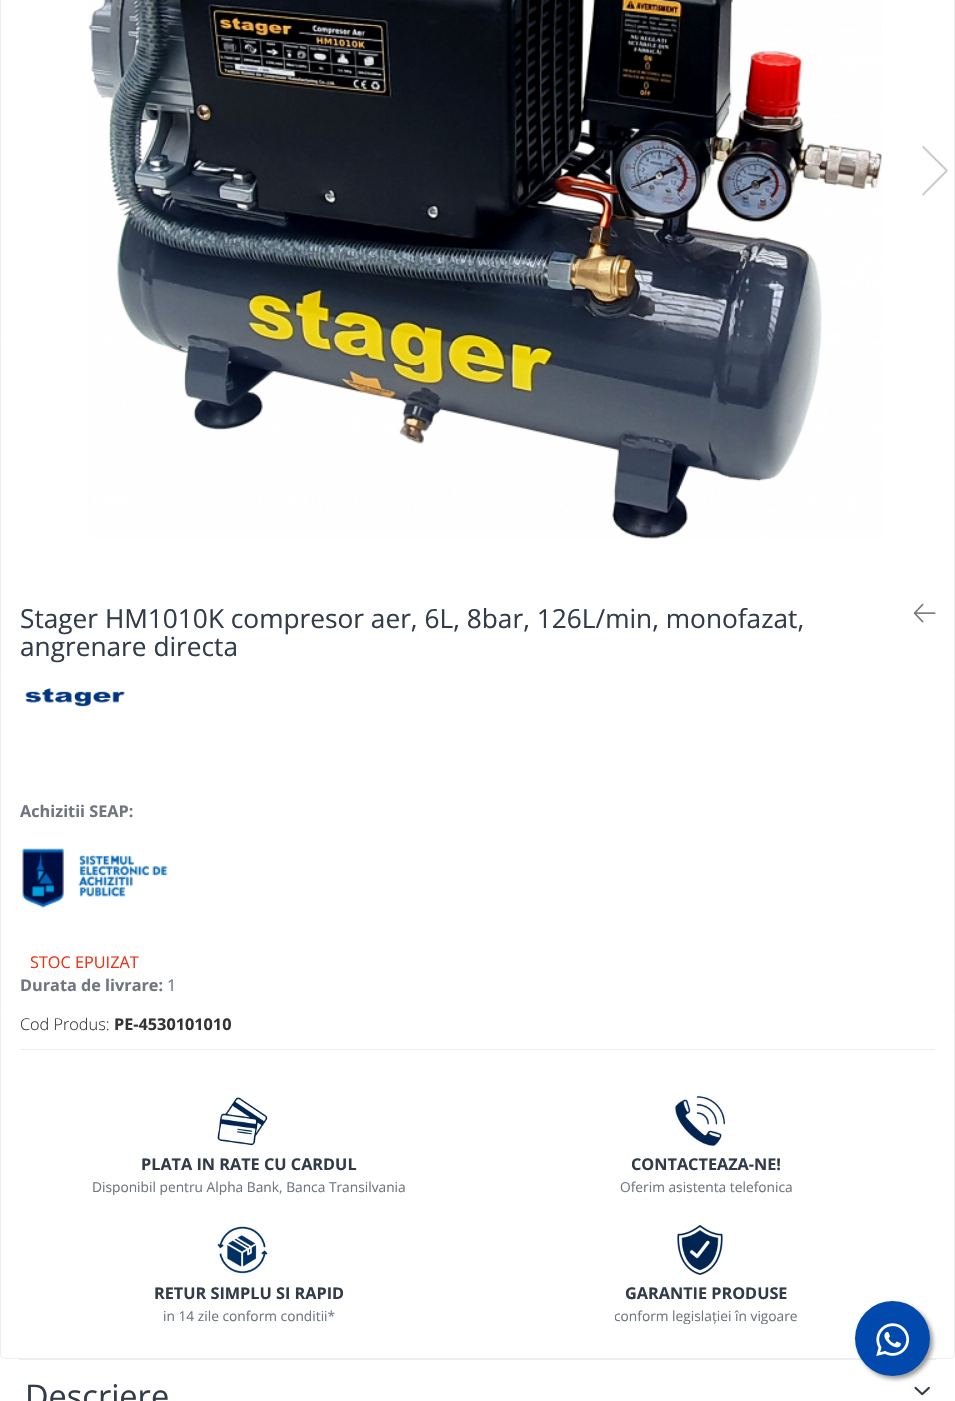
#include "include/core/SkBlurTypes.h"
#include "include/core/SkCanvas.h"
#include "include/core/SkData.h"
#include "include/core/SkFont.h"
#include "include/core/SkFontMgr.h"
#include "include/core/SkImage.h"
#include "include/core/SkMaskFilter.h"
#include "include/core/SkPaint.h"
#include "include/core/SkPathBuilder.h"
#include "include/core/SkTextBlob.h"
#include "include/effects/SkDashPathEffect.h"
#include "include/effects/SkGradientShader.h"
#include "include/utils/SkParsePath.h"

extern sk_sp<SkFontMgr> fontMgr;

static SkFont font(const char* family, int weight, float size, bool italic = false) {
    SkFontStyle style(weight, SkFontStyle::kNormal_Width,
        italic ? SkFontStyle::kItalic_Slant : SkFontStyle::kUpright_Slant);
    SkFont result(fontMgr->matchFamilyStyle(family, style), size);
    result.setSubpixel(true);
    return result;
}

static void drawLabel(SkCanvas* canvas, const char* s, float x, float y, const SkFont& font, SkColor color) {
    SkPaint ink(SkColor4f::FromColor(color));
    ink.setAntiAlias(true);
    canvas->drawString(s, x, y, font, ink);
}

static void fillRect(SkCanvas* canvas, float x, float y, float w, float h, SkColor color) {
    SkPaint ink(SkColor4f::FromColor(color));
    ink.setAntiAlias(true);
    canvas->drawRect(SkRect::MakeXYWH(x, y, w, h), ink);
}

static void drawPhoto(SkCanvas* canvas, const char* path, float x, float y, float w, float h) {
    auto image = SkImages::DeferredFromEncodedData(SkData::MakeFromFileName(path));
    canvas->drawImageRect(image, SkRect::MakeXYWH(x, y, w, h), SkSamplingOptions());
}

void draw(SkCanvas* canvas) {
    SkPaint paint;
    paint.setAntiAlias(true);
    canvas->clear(0xFFFFFFFF);
    paint.setStroke(true);
    paint.setStrokeWidth(1);
    paint.setColor(0xFFEEEEEE);
    canvas->drawRoundRect(SkRect::MakeXYWH(0.5f, -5.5f, 954, 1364), 4.5f, 4.5f, paint);
    drawPhoto(canvas, "assets/img1.png", 88, 0, 795, 539);
    drawPhoto(canvas, "assets/img2.png", 922, 145, 26, 52);
    SkFont font1 = font("Open Sans", 400, 26.25f);
    drawLabel(canvas, "Stager HM1010K compresor aer, 6L, 8bar, 126L/min, monofazat,", 20, 628, font1, 0xFF323C49);
    drawLabel(canvas, "angrenare directa", 20, 656, font1, 0xFF323C49);
    drawPhoto(canvas, "assets/img3.png", 913, 603, 23, 20);
    drawPhoto(canvas, "assets/img4.png", 25, 688, 100, 19);
    SkFont font2 = font("Open Sans", 700, 16.25f);
    drawLabel(canvas, "Achizitii SEAP:", 20, 817, font2, 0xFF6F767F);
    drawPhoto(canvas, "assets/img5.png", 22, 848, 146, 60);
    SkFont font3 = font("Open Sans", 400, 16.25f);
    drawLabel(canvas, "STOC EPUIZAT", 30, 968, font3, 0xFFEE3214);
    drawLabel(canvas, "Durata de livrare:", 20, 991, font2, 0xFF6F767F);
    drawLabel(canvas, "1", 167, 991, font3, 0xFF6F767F);
    SkFont font4 = font("Open Sans", 300, 16.25f);
    drawLabel(canvas, "Cod Produs:", 20, 1030, font4, 0xFF333333);
    drawLabel(canvas, "PE-4530101010", 114, 1030, font2, 0xFF333333);
    fillRect(canvas, 20, 1049, 915, 1, 0xFFEEEEEE);
    drawPhoto(canvas, "assets/img6.png", 217, 1097, 51, 49);
    drawLabel(canvas, "PLATA IN RATE CU CARDUL", 141, 1170, font2, 0xFF323C49);
    canvas->save();
    canvas->clipRect(SkRect::MakeXYWH(93, 1155, 312, 40));
    SkFont font5 = font("Open Sans", 400, 13.75f);
    drawLabel(canvas, "Disponibil pentru Alpha Bank, Banca Transilvania", 92, 1192, font5, 0xFF6F767F);
    canvas->restore();
    drawPhoto(canvas, "assets/img7.png", 675, 1096, 50, 50);
    drawLabel(canvas, "CONTACTEAZA-NE!", 631, 1170, font2, 0xFF323C49);
    drawLabel(canvas, "Oferim asistenta telefonica", 620, 1192, font5, 0xFF6F767F);
    drawPhoto(canvas, "assets/img8.png", 217, 1226, 51, 48);
    drawLabel(canvas, "RETUR SIMPLU SI RAPID", 154, 1299, font2, 0xFF323C49);
    drawLabel(canvas, "in 14 zile conform conditii*", 163, 1321, font5, 0xFF6F767F);
    drawPhoto(canvas, "assets/img9.png", 677, 1225, 46, 50);
    drawLabel(canvas, "GARANTIE PRODUSE", 625, 1299, font2, 0xFF323C49);
    canvas->save();
    canvas->clipRect(SkRect::MakeXYWH(615, 1284, 183, 40));
    drawLabel(canvas, "conform legislației în vigoare", 614, 1321, font5, 0xFF6F767F);
    canvas->restore();
    fillRect(canvas, 19, 1359, 917, 1, 0xFFEEEEEE);
    SkFont font6 = font("Open Sans", 400, 32.5f);
    drawLabel(canvas, "Descriere", 25, 1408, font6, 0xFF323C49);
    drawPhoto(canvas, "assets/img10.png", 914, 1386, 16, 10);
    paint.setStroke(false);
    paint.setColor(0xFF999999);
    paint.setMaskFilter(SkMaskFilter::MakeBlur(kNormal_SkBlurStyle, 2));
    canvas->drawRoundRect(SkRect::MakeXYWH(858, 1304, 75, 75), 37.5f, 37.5f, paint);
    paint.setMaskFilter(nullptr);
    paint.setColor(0xFF0149AC);
    canvas->drawCircle(892.5f, 1338.5f, 37.5f, paint);
    drawPhoto(canvas, "assets/img11.png", 876, 1323, 34, 33);
}
